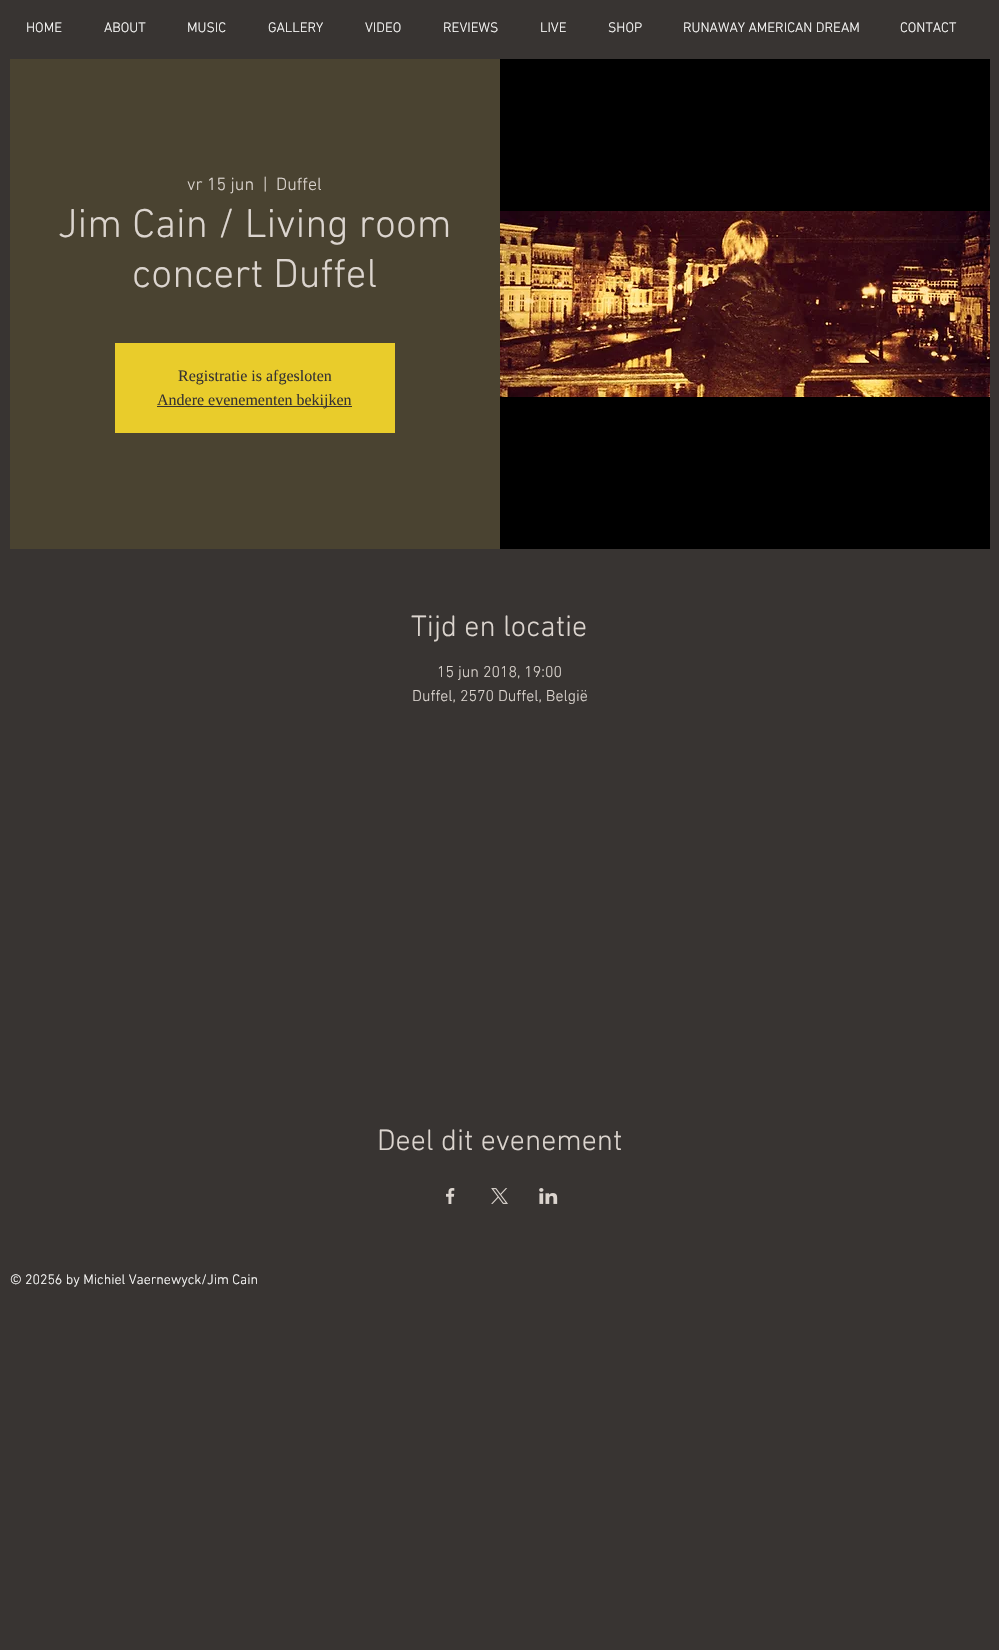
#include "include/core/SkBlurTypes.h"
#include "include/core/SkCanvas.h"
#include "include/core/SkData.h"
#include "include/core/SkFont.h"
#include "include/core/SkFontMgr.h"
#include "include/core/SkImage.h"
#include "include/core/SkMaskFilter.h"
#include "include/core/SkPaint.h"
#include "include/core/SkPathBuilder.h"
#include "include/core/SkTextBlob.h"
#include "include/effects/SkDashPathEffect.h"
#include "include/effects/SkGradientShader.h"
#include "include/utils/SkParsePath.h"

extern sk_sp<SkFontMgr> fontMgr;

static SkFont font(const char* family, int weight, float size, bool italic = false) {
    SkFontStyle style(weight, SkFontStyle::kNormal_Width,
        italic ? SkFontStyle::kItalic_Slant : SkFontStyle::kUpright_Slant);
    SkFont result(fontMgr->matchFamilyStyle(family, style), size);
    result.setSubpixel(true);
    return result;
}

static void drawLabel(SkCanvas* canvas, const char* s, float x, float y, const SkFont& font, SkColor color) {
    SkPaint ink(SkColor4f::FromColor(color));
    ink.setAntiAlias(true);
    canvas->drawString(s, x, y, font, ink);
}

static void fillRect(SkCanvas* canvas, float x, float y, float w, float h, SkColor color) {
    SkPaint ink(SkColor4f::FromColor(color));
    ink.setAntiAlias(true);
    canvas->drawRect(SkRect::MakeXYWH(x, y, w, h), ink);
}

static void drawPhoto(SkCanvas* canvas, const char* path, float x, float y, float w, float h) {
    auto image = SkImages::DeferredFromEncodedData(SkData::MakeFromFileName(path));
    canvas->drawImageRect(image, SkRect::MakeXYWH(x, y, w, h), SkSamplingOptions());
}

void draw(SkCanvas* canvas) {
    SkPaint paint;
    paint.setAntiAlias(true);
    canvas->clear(0xFF383432);
    SkFont font1 = font("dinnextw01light", 300, 14);
    drawLabel(canvas, "HOME", 26, 32, font1, 0xFFFFFFFE);
    drawLabel(canvas, "ABOUT", 104, 32, font1, 0xFFFFFFFE);
    drawLabel(canvas, "MUSIC", 187, 32, font1, 0xFFFFFFFE);
    drawLabel(canvas, "GALLERY", 268, 32, font1, 0xFFFFFFFE);
    drawLabel(canvas, "VIDEO", 365, 32, font1, 0xFFFFFFFE);
    drawLabel(canvas, "REVIEWS", 443, 32, font1, 0xFFFFFFFE);
    drawLabel(canvas, "LIVE", 540, 32, font1, 0xFFFFFFFE);
    drawLabel(canvas, "SHOP", 608, 32, font1, 0xFFFFFFFE);
    drawLabel(canvas, "RUNAWAY AMERICAN DREAM", 683, 32, font1, 0xFFFFFFFE);
    drawLabel(canvas, "CONTACT", 900, 32, font1, 0xFFFFFFFE);
    fillRect(canvas, 10, 59, 490, 490, 0xFF4A4331);
    SkFont font2 = font("dinnextw01light", 300, 18);
    drawLabel(canvas, "vr 15 jun", 187, 190, font2, 0xFFDCD5CF);
    drawLabel(canvas, "|", 263, 190, font2, 0xFFDCD5CF);
    drawLabel(canvas, "Duffel", 276, 190, font2, 0xFFDCD5CF);
    SkFont font3 = font("dinnextw01light", 300, 41);
    drawLabel(canvas, "Jim Cain / Living room", 58, 237, font3, 0xFFDCD5CF);
    drawLabel(canvas, "concert Duffel", 132, 287, font3, 0xFFDCD5CF);
    fillRect(canvas, 115, 343, 280, 90, 0xFFE9CC2B);
    SkFont font4 = font("Liberation Serif", 400, 16);
    drawLabel(canvas, "Registratie is afgesloten", 178, 381, font4, 0xFF383432);
    fillRect(canvas, 157, 406, 195, 1, 0xFF383432);
    drawLabel(canvas, "Andere evenementen bekijken", 157, 405, font4, 0xFF383432);
    fillRect(canvas, 500, 59, 490, 490, 0xFF000000);
    drawPhoto(canvas, "assets/img1.png", 500, 211, 490, 186);
    SkFont font5 = font("dinnextw01light", 300, 30);
    drawLabel(canvas, "Tijd en locatie", 411, 636, font5, 0xFFDCD5CF);
    SkFont font6 = font("dinnextw01light", 300, 16);
    drawLabel(canvas, "15 jun 2018, 19:00", 437, 677, font6, 0xFFDCD5CF);
    drawLabel(canvas, "Duffel, 2570 Duffel, België", 412, 701, font6, 0xFFDCD5CF);
    drawLabel(canvas, "Deel dit evenement", 377, 1150, font5, 0xFFDCD5CF);
    drawPhoto(canvas, "assets/img2.png", 446, 1188, 9, 16);
    drawPhoto(canvas, "assets/img3.png", 491, 1188, 17, 16);
    drawPhoto(canvas, "assets/img4.png", 539, 1188, 19, 16);
    drawLabel(canvas, "© 20256 by Michiel Vaernewyck/Jim Cain", 10, 1284, font1, 0xFFFFFFFE);
}
